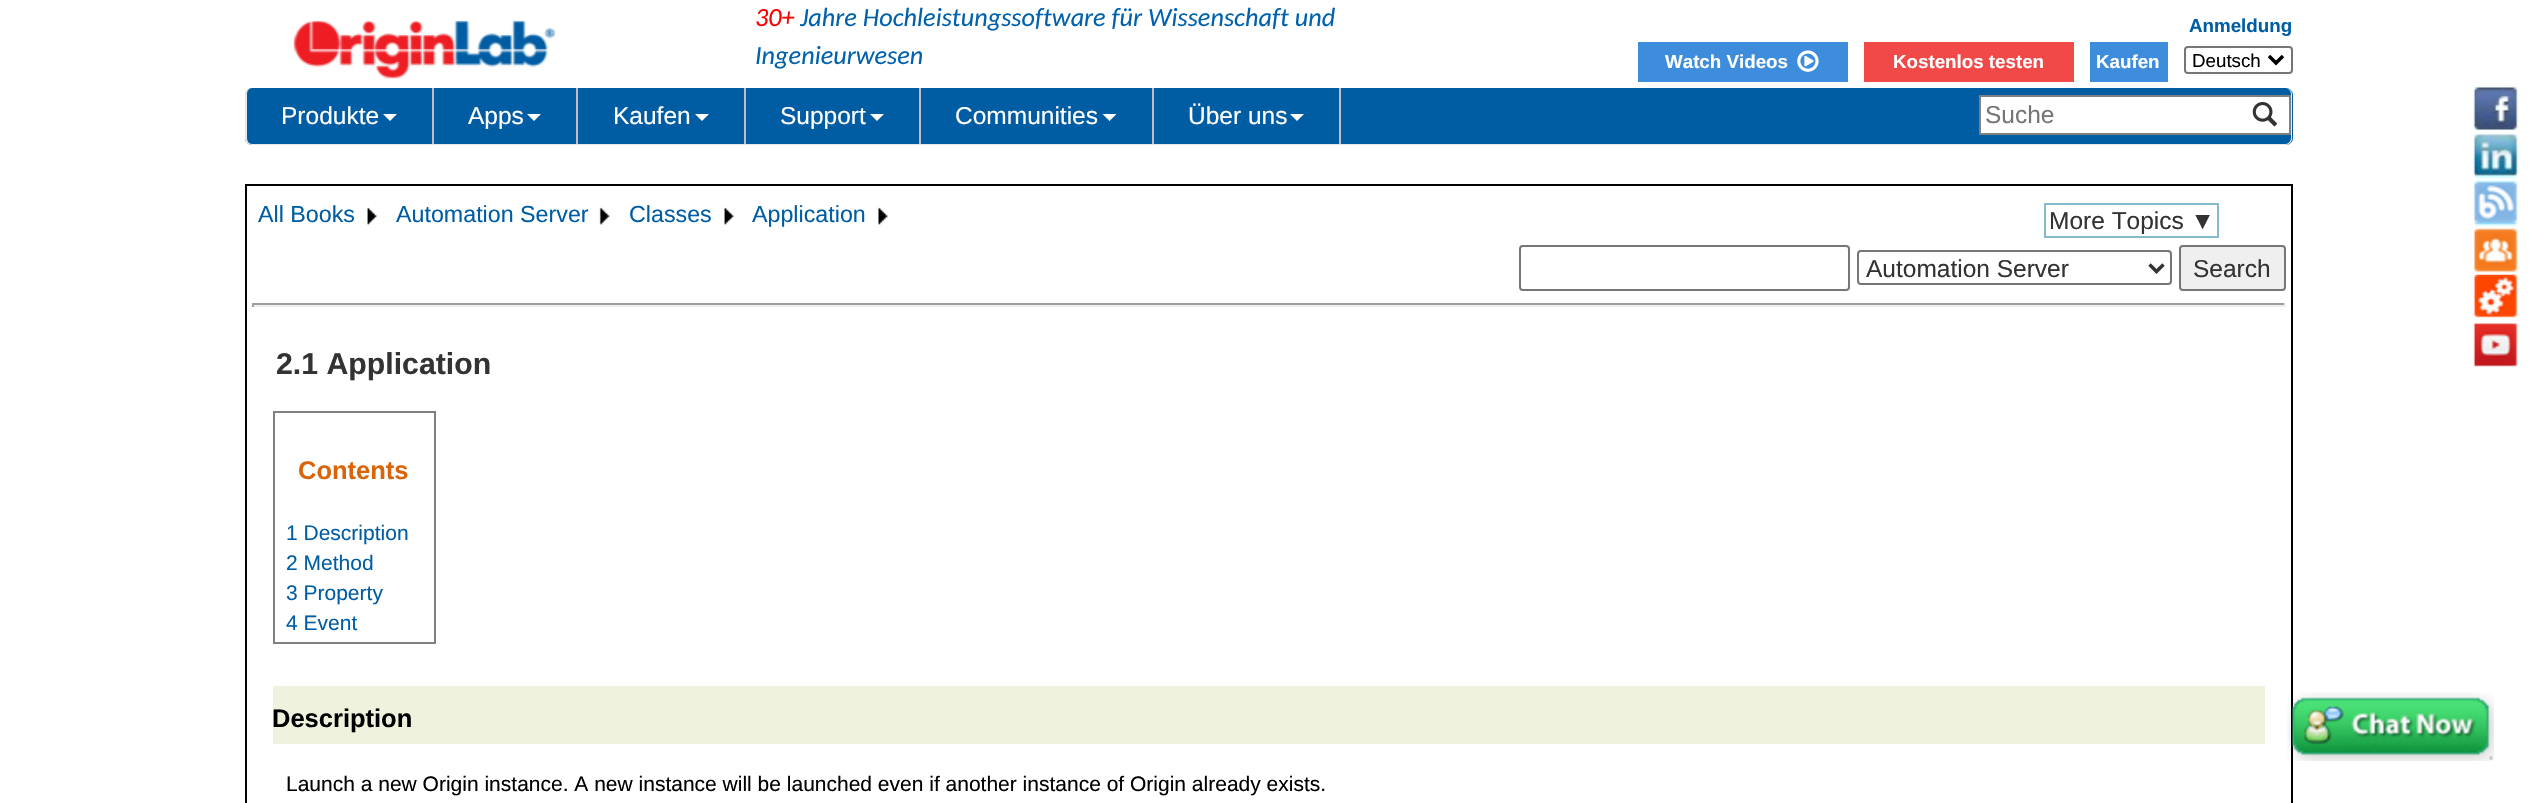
#include "include/core/SkBlurTypes.h"
#include "include/core/SkCanvas.h"
#include "include/core/SkData.h"
#include "include/core/SkFont.h"
#include "include/core/SkFontMgr.h"
#include "include/core/SkImage.h"
#include "include/core/SkMaskFilter.h"
#include "include/core/SkPaint.h"
#include "include/core/SkPathBuilder.h"
#include "include/core/SkTextBlob.h"
#include "include/effects/SkDashPathEffect.h"
#include "include/effects/SkGradientShader.h"
#include "include/utils/SkParsePath.h"

extern sk_sp<SkFontMgr> fontMgr;

static SkFont font(const char* family, int weight, float size, bool italic = false) {
    SkFontStyle style(weight, SkFontStyle::kNormal_Width,
        italic ? SkFontStyle::kItalic_Slant : SkFontStyle::kUpright_Slant);
    SkFont result(fontMgr->matchFamilyStyle(family, style), size);
    result.setSubpixel(true);
    return result;
}

static void drawLabel(SkCanvas* canvas, const char* s, float x, float y, const SkFont& font, SkColor color) {
    SkPaint ink(SkColor4f::FromColor(color));
    ink.setAntiAlias(true);
    canvas->drawString(s, x, y, font, ink);
}

static void fillRect(SkCanvas* canvas, float x, float y, float w, float h, SkColor color) {
    SkPaint ink(SkColor4f::FromColor(color));
    ink.setAntiAlias(true);
    canvas->drawRect(SkRect::MakeXYWH(x, y, w, h), ink);
}

static void fillRRect(SkCanvas* canvas, float x, float y, float w, float h, float radius, SkColor color) {
    SkPaint ink(SkColor4f::FromColor(color));
    ink.setAntiAlias(true);
    canvas->drawRoundRect(SkRect::MakeXYWH(x, y, w, h), radius, radius, ink);
}

static void drawPhoto(SkCanvas* canvas, const char* path, float x, float y, float w, float h) {
    auto image = SkImages::DeferredFromEncodedData(SkData::MakeFromFileName(path));
    canvas->drawImageRect(image, SkRect::MakeXYWH(x, y, w, h), SkSamplingOptions());
}

static SkPath parsePath(const char* data, bool evenOdd = false) {
    SkPath result = *SkParsePath::FromSVGString(data);
    if (evenOdd) result.setFillType(SkPathFillType::kEvenOdd);
    return result;
}

void draw(SkCanvas* canvas) {
    SkPaint paint;
    paint.setAntiAlias(true);
    canvas->clear(0xFFFFFFFF);
    drawPhoto(canvas, "assets/img1.png", 293, 20, 263, 59);
    SkFont font1 = font("Carlito", 400, 26.25f, true);
    drawLabel(canvas, "30+", 755, 26, font1, 0xFFFF0000);
    drawLabel(canvas, "Jahre Hochleistungssoftware für Wissenschaft und", 800, 26, font1, 0xFF0061AD);
    drawLabel(canvas, "Ingenieurwesen", 755, 64, font1, 0xFF0061AD);
    SkFont font2 = font("Liberation Sans", 700, 18.75f);
    drawLabel(canvas, "Anmeldung", 2189, 32, font2, 0xFF005DA4);
    fillRect(canvas, 1638, 42, 210, 40, 0xFF3E8DDD);
    drawLabel(canvas, "Watch Videos", 1665, 68, font2, 0xFFFFFFFF);
    drawPhoto(canvas, "assets/img2.png", 1797, 50, 22, 22);
    fillRect(canvas, 1864, 42, 210, 40, 0xFFF14947);
    drawLabel(canvas, "Kostenlos testen", 1893, 68, font2, 0xFFFFFFFF);
    fillRect(canvas, 2090, 42, 78, 40, 0xFF3E8DDD);
    drawLabel(canvas, "Kaufen", 2096, 68, font2, 0xFFFFFFFF);
    paint.setStroke(true);
    paint.setStrokeWidth(2);
    paint.setColor(0xFF767676);
    canvas->drawRoundRect(SkRect::MakeXYWH(2185, 47, 107, 26), 3, 3, paint);
    paint.setStrokeWidth(3.5f);
    paint.setColor(0xFF000000);
    canvas->drawPath(parsePath("M2269 56L2276 63L2283 56"), paint);
    SkFont font3 = font("Liberation Sans", 400, 18.75f);
    drawLabel(canvas, "Deutsch", 2192, 67, font3, 0xFF000000);
    fillRRect(canvas, 245, 88, 2048, 57, 7, 0xFF005DA4);
    paint.setStroke(false);
    paint.setColor(0xFFE7E7E7);
    canvas->drawPath(parsePath("M252 88H2286C2289 88 2292 91 2292 94V138C2292 142 2289 145 2286 145H252C248 145 245 142 245 138V94C245 91 248 88 252 88ZM252 88H2286C2288 88 2291 91 2291 94V138C2291 141 2288 144 2286 144H252C249 144 247 141 247 138V94C247 91 249 88 252 88Z", true), paint);
    fillRect(canvas, 432, 88, 2, 56, 0xFFBFBFBF);
    SkFont font4 = font("Liberation Sans", 400, 24.5f);
    drawLabel(canvas, "Produkte", 281, 124, font4, 0xFFFFFFFF);
    paint.setColor(0xFFFFFFFF);
    canvas->drawPath(parsePath("M383 114H397L390 121Z"), paint);
    fillRect(canvas, 576, 88, 2, 56, 0xFFBFBFBF);
    drawLabel(canvas, "Apps", 468, 124, font4, 0xFFFFFFFF);
    canvas->drawPath(parsePath("M527 114H541L534 121Z"), paint);
    fillRect(canvas, 744, 88, 2, 56, 0xFFBFBFBF);
    drawLabel(canvas, "Kaufen", 613, 124, font4, 0xFFFFFFFF);
    canvas->drawPath(parsePath("M695 114H709L702 121Z"), paint);
    fillRect(canvas, 919, 88, 2, 56, 0xFFBFBFBF);
    drawLabel(canvas, "Support", 780, 124, font4, 0xFFFFFFFF);
    canvas->drawPath(parsePath("M870 114H884L877 121Z"), paint);
    fillRect(canvas, 1152, 88, 2, 56, 0xFFBFBFBF);
    drawLabel(canvas, "Communities", 955, 124, font4, 0xFFFFFFFF);
    canvas->drawPath(parsePath("M1102.5 114H1116.5L1109.5 121Z"), paint);
    fillRect(canvas, 1339, 88, 2, 56, 0xFFBFBFBF);
    drawLabel(canvas, "Über uns", 1188, 124, font4, 0xFFFFFFFF);
    canvas->drawPath(parsePath("M1290 114H1304L1297 121Z"), paint);
    fillRect(canvas, 1981, 97, 308, 36, 0xFFFFFFFF);
    fillRect(canvas, 1979, 95, 312, 2, 0xFF808080);
    fillRect(canvas, 1979, 133, 263, 2, 0xFF808080);
    fillRect(canvas, 1979, 95, 2, 40, 0xFF808080);
    drawLabel(canvas, "Suche", 1985, 123, font4, 0xFF757575);
    fillRect(canvas, 2289, 95, 2, 40, 0xFF808080);
    fillRect(canvas, 2242, 133, 49, 2, 0xFF808080);
    drawPhoto(canvas, "assets/img3.png", 2252, 102, 26, 25);
    drawPhoto(canvas, "assets/img4.png", 2473, 85, 46, 47);
    drawPhoto(canvas, "assets/img5.png", 2473, 133, 46, 46);
    drawPhoto(canvas, "assets/img6.png", 2473, 180, 46, 46);
    drawPhoto(canvas, "assets/img7.png", 2473, 227, 46, 46);
    drawPhoto(canvas, "assets/img8.png", 2473, 274, 46, 46);
    drawPhoto(canvas, "assets/img9.png", 2473, 322, 46, 45);
    paint.setStroke(true);
    paint.setStrokeWidth(2);
    paint.setColor(0xFF000000);
    canvas->drawRect(SkRect::MakeXYWH(246, 185, 2046, 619), paint);
    SkFont font5 = font("Liberation Sans", 400, 23.25f);
    drawLabel(canvas, "All Books", 258, 222, font5, 0xFF005DA4);
    drawPhoto(canvas, "assets/img10.png", 367, 207, 10, 18);
    drawLabel(canvas, "Automation Server", 396, 222, font5, 0xFF005DA4);
    drawPhoto(canvas, "assets/img11.png", 599, 207, 11, 18);
    drawLabel(canvas, "Classes", 629, 222, font5, 0xFF005DA4);
    drawPhoto(canvas, "assets/img10.png", 724, 207, 10, 18);
    drawLabel(canvas, "Application", 752, 222, font5, 0xFF005DA4);
    drawPhoto(canvas, "assets/img12.png", 878, 207, 10, 18);
    paint.setColor(0xFF84BCCD);
    canvas->drawRect(SkRect::MakeXYWH(2045, 204, 173, 33), paint);
    drawLabel(canvas, "More Topics ▼", 2049, 229, font4, 0xFF333333);
    paint.setColor(0xFF767676);
    canvas->drawRoundRect(SkRect::MakeXYWH(1520, 246, 329, 44), 3, 3, paint);
    canvas->drawRoundRect(SkRect::MakeXYWH(1858, 251, 313, 33), 3, 3, paint);
    paint.setStrokeWidth(3.5f);
    paint.setColor(0xFF333333);
    canvas->drawPath(parsePath("M2149.5 264.5L2156.5 271.5L2163.5 264.5"), paint);
    drawLabel(canvas, "Automation Server", 1866, 277, font4, 0xFF333333);
    paint.setStroke(false);
    paint.setColor(0xFFEFEFEF);
    canvas->drawRoundRect(SkRect::MakeXYWH(2180, 246, 105, 44), 3, 3, paint);
    paint.setStroke(true);
    paint.setStrokeWidth(2);
    paint.setColor(0xFF767676);
    canvas->drawRoundRect(SkRect::MakeXYWH(2180, 246, 105, 44), 3, 3, paint);
    drawLabel(canvas, "Search", 2193, 277, font4, 0xFF333333);
    fillRect(canvas, 252, 303, 2034, 2, 0xFF9F9F9F);
    fillRect(canvas, 2284, 303, 2, 4, 0xFFEEEEEE);
    fillRect(canvas, 252, 305, 2034, 2, 0xFFEEEEEE);
    fillRect(canvas, 252, 303, 2, 4, 0xFF9F9F9F);
    SkFont font6 = font("Liberation Sans", 700, 30.25f);
    drawLabel(canvas, "2.1 Application", 276, 374, font6, 0xFF333333);
    paint.setColor(0xFF808080);
    canvas->drawRect(SkRect::MakeXYWH(274, 412, 161, 231), paint);
    SkFont font7 = font("Liberation Sans", 700, 25.5f);
    drawLabel(canvas, "Contents", 298, 479, font7, 0xFFDA640A);
    SkFont font8 = font("Liberation Sans", 400, 21);
    drawLabel(canvas, "1 Description", 286, 540, font8, 0xFF005DA4);
    drawLabel(canvas, "2 Method", 286, 570, font8, 0xFF005DA4);
    drawLabel(canvas, "3 Property", 286, 600, font8, 0xFF005DA4);
    drawLabel(canvas, "4 Event", 286, 630, font8, 0xFF005DA4);
    fillRect(canvas, 273, 686, 1992, 58, 0xFFEFF2DD);
    drawLabel(canvas, "Description", 272, 727, font7, 0xFF000000);
    drawLabel(canvas, "Launch a new Origin instance. A new instance will be launched even if another instance of Origin already exists.", 286, 791, font8, 0xFF000000);
    drawPhoto(canvas, "assets/img13.png", 2287, 692, 207, 69);
    paint.setStroke(false);
    paint.setColor(0xFFCCCCCC);
    canvas->drawCircle(2491, 758, 2, paint);
}
